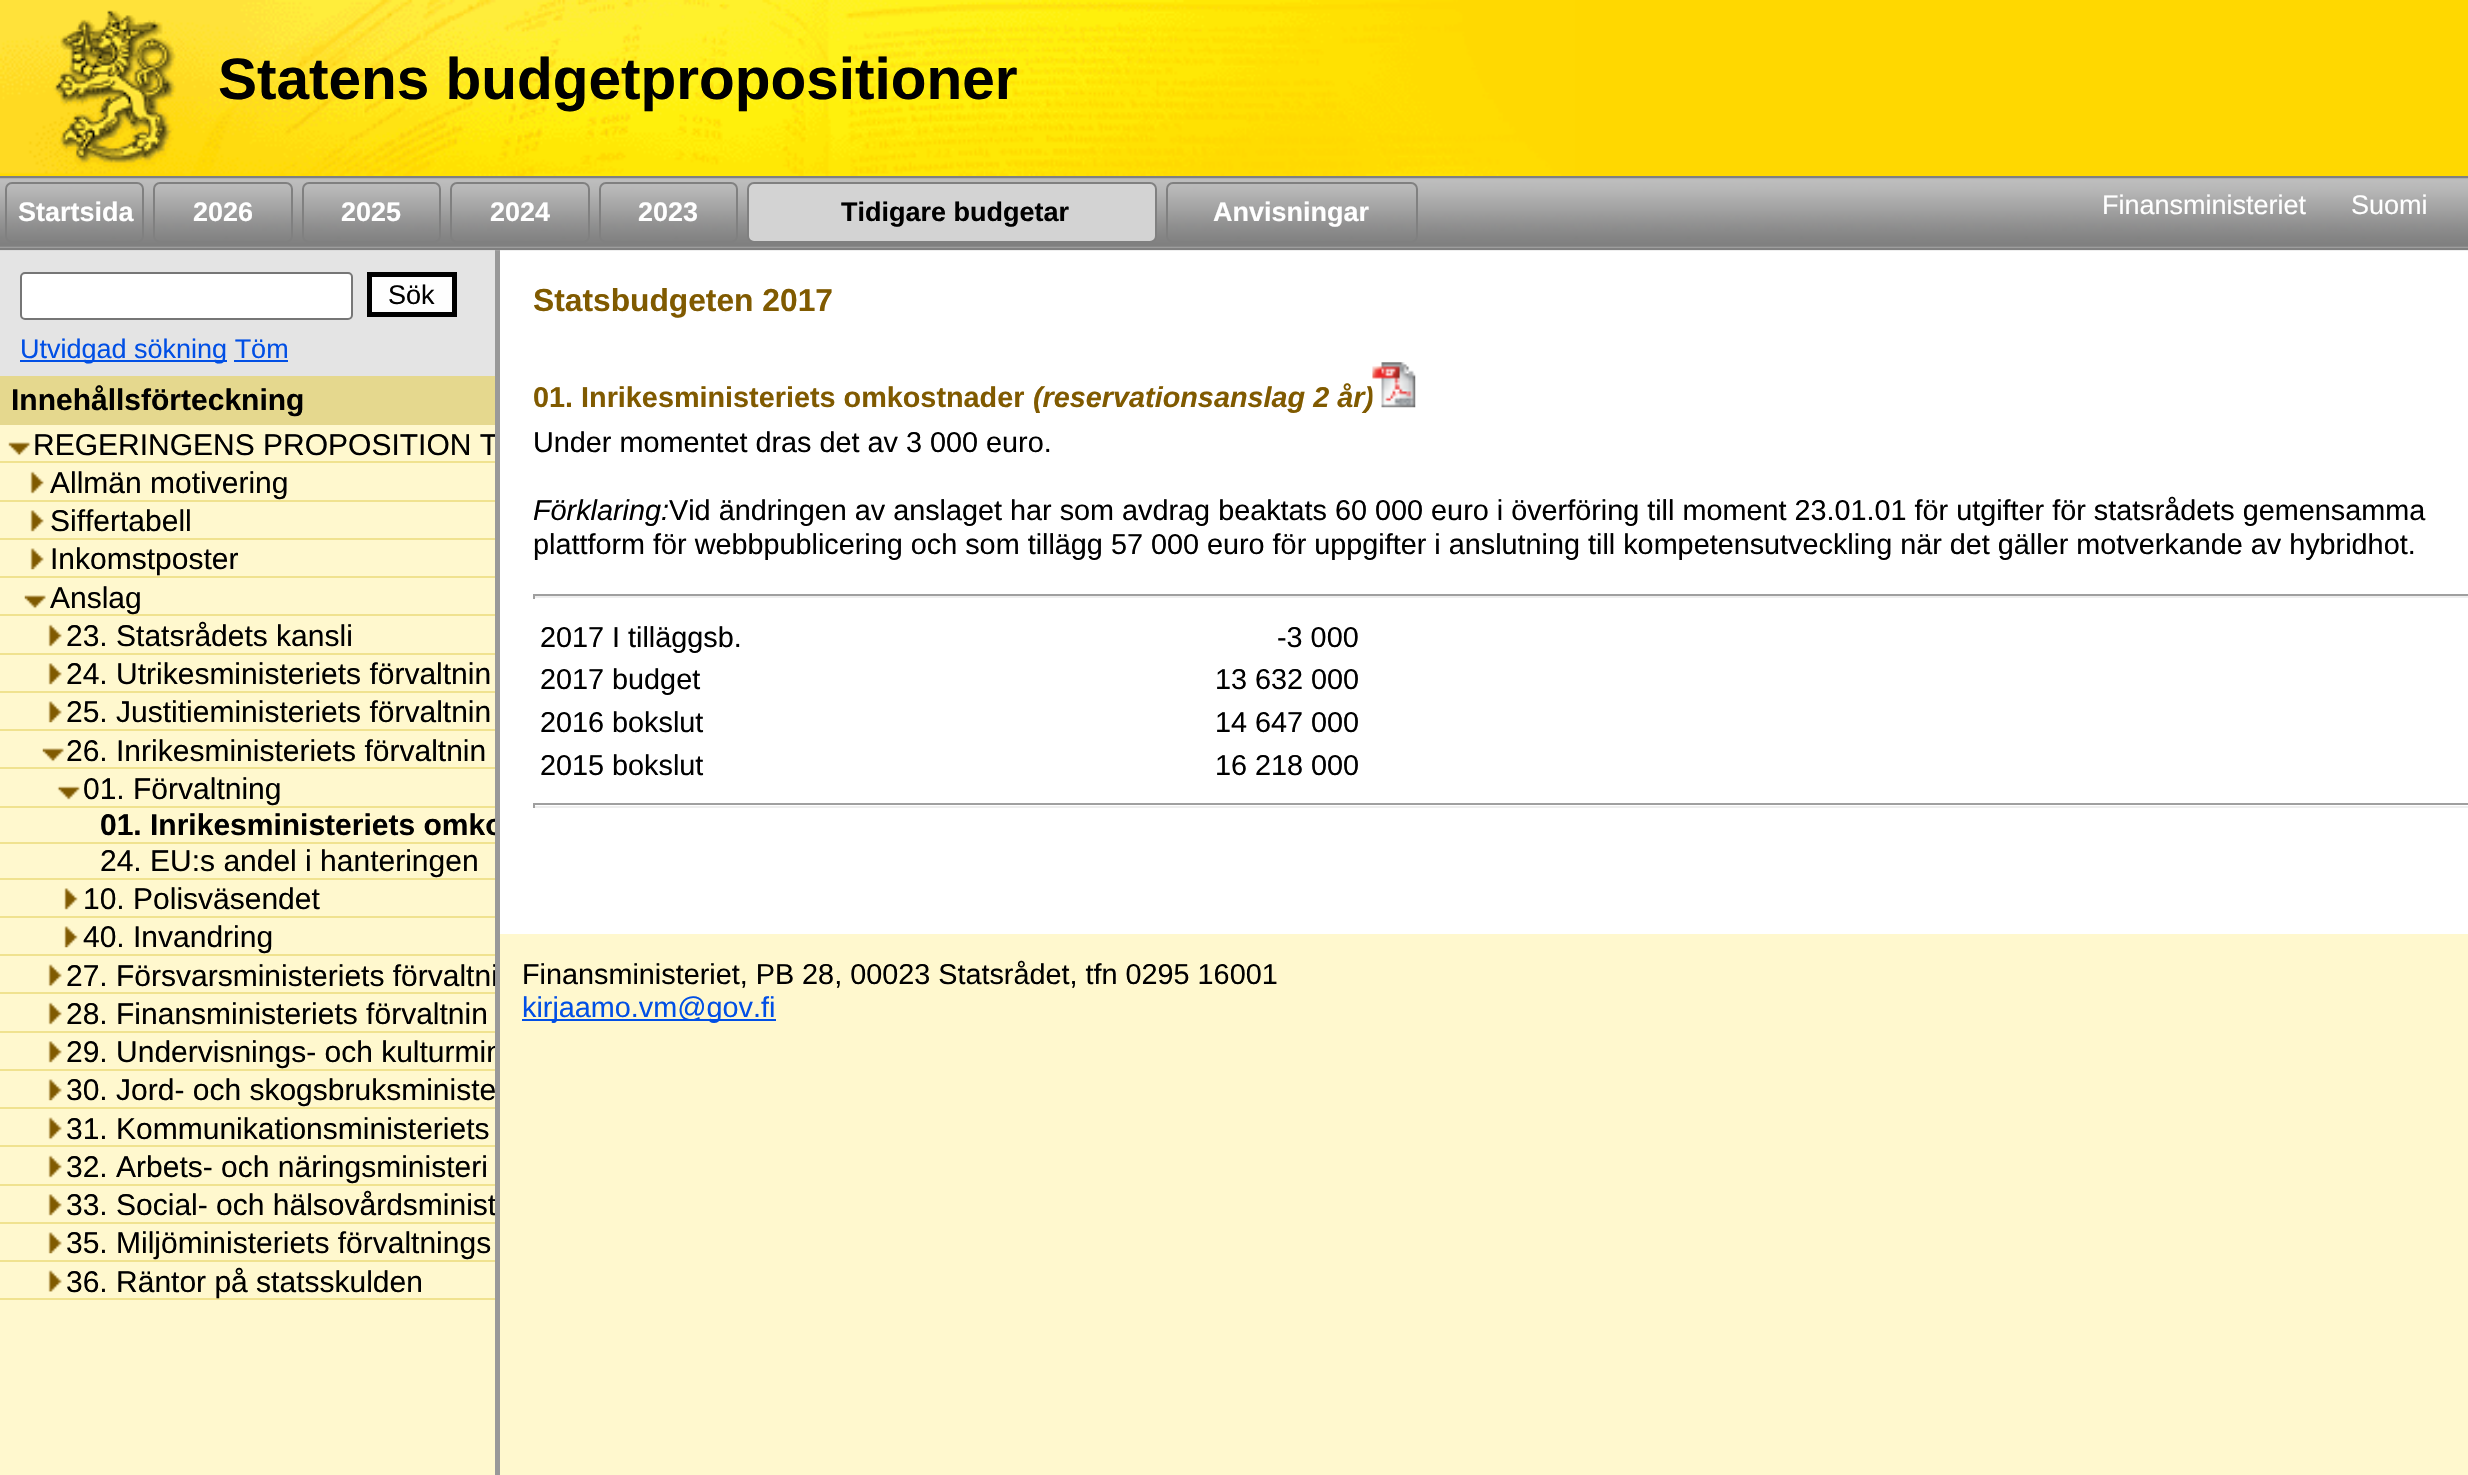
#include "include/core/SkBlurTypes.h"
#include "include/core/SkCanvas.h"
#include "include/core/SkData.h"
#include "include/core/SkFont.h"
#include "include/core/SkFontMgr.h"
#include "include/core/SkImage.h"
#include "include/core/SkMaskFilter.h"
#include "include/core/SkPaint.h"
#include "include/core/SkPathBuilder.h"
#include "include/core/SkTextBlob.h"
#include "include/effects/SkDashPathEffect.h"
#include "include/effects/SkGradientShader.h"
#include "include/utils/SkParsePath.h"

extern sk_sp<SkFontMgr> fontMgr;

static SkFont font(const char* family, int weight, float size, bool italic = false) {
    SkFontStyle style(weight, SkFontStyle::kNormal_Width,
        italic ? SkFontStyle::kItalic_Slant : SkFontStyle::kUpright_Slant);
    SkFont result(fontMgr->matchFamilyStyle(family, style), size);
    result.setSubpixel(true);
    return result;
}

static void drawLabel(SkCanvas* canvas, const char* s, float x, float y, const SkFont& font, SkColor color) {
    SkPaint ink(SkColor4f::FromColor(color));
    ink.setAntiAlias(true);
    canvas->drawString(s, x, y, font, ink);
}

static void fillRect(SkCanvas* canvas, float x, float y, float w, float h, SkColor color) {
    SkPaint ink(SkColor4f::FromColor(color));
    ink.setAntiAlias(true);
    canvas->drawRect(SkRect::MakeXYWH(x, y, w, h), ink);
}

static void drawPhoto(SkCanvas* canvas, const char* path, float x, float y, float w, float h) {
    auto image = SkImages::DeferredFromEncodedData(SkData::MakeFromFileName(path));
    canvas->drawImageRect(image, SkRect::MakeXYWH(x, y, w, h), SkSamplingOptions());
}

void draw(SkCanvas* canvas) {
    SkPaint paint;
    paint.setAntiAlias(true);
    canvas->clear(0xFFFFF8CE);
    drawPhoto(canvas, "assets/img1.png", 0, 0, 1575, 176);
    SkFont font1 = font("Liberation Sans", 700, 58.5f);
    drawLabel(canvas, "Statens budgetpropositioner", 218, 99, font1, 0xFF000000);
    fillRect(canvas, 1575, 0, 893, 176, 0xFFFFD800);
    fillRect(canvas, 0, 250, 495, 126, 0xFFE4E4E4);
    fillRect(canvas, 495, 248, 5, 1227, 0xFF999999);
    fillRect(canvas, 500, 250, 1968, 684, 0xFFFFFFFF);
    drawPhoto(canvas, "assets/img2.png", 0, 178, 2468, 73);
    fillRect(canvas, 0, 176, 2468, 2, 0xFF808080);
    fillRect(canvas, 0, 248, 2468, 2, 0xFF808080);
    paint.setStroke(true);
    paint.setStrokeWidth(2);
    paint.setColor(0xFF808080);
    canvas->drawRoundRect(SkRect::MakeXYWH(6, 183, 137, 59), 6, 6, paint);
    SkFont font2 = font("Liberation Sans", 700, 27);
    drawLabel(canvas, "Startsida", 18, 221, font2, 0xFFFFFFFF);
    canvas->drawRoundRect(SkRect::MakeXYWH(154, 183, 138, 59), 6, 6, paint);
    drawLabel(canvas, "2026", 193, 221, font2, 0xFFFFFFFF);
    canvas->drawRoundRect(SkRect::MakeXYWH(303, 183, 137, 59), 6, 6, paint);
    drawLabel(canvas, "2025", 341, 221, font2, 0xFFFFFFFF);
    canvas->drawRoundRect(SkRect::MakeXYWH(451, 183, 138, 59), 6, 6, paint);
    drawLabel(canvas, "2024", 490, 221, font2, 0xFFFFFFFF);
    canvas->drawRoundRect(SkRect::MakeXYWH(600, 183, 137, 59), 6, 6, paint);
    drawLabel(canvas, "2023", 638, 221, font2, 0xFFFFFFFF);
    paint.setStroke(false);
    paint.setColor(0xFFD3D3D3);
    canvas->drawRoundRect(SkRect::MakeXYWH(748, 183, 408, 59), 6, 6, paint);
    paint.setStroke(true);
    paint.setColor(0xFF808080);
    canvas->drawRoundRect(SkRect::MakeXYWH(748, 183, 408, 59), 6, 6, paint);
    drawLabel(canvas, "Tidigare budgetar", 841, 221, font2, 0xFF000000);
    canvas->drawRoundRect(SkRect::MakeXYWH(1167, 183, 250, 59), 6, 6, paint);
    drawLabel(canvas, "Anvisningar", 1213, 221, font2, 0xFFFFFFFF);
    SkFont font3 = font("Liberation Sans", 400, 27);
    drawLabel(canvas, "Finansministeriet", 2102, 214, font3, 0xFFFFFFFF);
    drawLabel(canvas, "Suomi", 2351, 214, font3, 0xFFFFFFFF);
    paint.setStroke(false);
    paint.setColor(0xFFFFFFFF);
    canvas->drawRoundRect(SkRect::MakeXYWH(21, 273, 331, 46), 4, 4, paint);
    paint.setStroke(true);
    paint.setColor(0xFF767676);
    canvas->drawRoundRect(SkRect::MakeXYWH(21, 273, 331, 46), 4, 4, paint);
    paint.setStroke(false);
    paint.setColor(0xFFFEFEFE);
    canvas->drawRect(SkRect::MakeXYWH(369.5f, 274.5f, 85, 40), paint);
    paint.setStroke(true);
    paint.setStrokeWidth(5);
    paint.setColor(0xFF000000);
    canvas->drawRect(SkRect::MakeXYWH(369.5f, 274.5f, 85, 40), paint);
    drawLabel(canvas, "Sök", 388, 304, font3, 0xFF000000);
    fillRect(canvas, 20, 360, 207, 2, 0xFF014FE5);
    drawLabel(canvas, "Utvidgad sökning Töm", 20, 358, font3, 0xFF014FE5);
    fillRect(canvas, 234, 360, 54, 2, 0xFF014FE5);
    fillRect(canvas, 0, 376, 495, 49, 0xFFE5D88E);
    SkFont font4 = font("Liberation Sans", 700, 30);
    drawLabel(canvas, "Innehållsförteckning", 11, 410, font4, 0xFF000000);
    fillRect(canvas, 0, 461, 495, 2, 0xFFF0E28F);
    drawPhoto(canvas, "assets/img3.png", 8, 442, 23, 14);
    canvas->save();
    canvas->clipRect(SkRect::MakeXYWH(0, 376, 495, 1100));
    SkFont font5 = font("Liberation Sans", 400, 30);
    drawLabel(canvas, "REGERINGENS PROPOSITION T", 33, 455, font5, 0xFF000000);
    canvas->restore();
    fillRect(canvas, 0, 500, 495, 2, 0xFFF0E28F);
    drawPhoto(canvas, "assets/img4.png", 30, 471, 14, 23);
    drawLabel(canvas, "Allmän motivering", 50, 493, font5, 0xFF000000);
    fillRect(canvas, 0, 538, 495, 2, 0xFFF0E28F);
    drawPhoto(canvas, "assets/img5.png", 30, 510, 14, 22);
    drawLabel(canvas, "Siffertabell", 50, 531, font5, 0xFF000000);
    fillRect(canvas, 0, 576, 495, 2, 0xFFF0E28F);
    drawPhoto(canvas, "assets/img6.png", 30, 548, 14, 22);
    drawLabel(canvas, "Inkomstposter", 50, 569, font5, 0xFF000000);
    fillRect(canvas, 0, 614, 495, 2, 0xFFF0E28F);
    drawPhoto(canvas, "assets/img7.png", 24, 595, 22, 14);
    drawLabel(canvas, "Anslag", 50, 608, font5, 0xFF000000);
    fillRect(canvas, 0, 653, 495, 2, 0xFFF0E28F);
    drawPhoto(canvas, "assets/img4.png", 48, 624, 14, 23);
    drawLabel(canvas, "23. Statsrådets kansli", 66, 646, font5, 0xFF000000);
    fillRect(canvas, 0, 691, 495, 2, 0xFFF0E28F);
    drawPhoto(canvas, "assets/img5.png", 48, 663, 14, 22);
    drawLabel(canvas, "24. Utrikesministeriets förvaltnin", 66, 684, font5, 0xFF000000);
    fillRect(canvas, 0, 729, 495, 2, 0xFFF0E28F);
    drawPhoto(canvas, "assets/img6.png", 48, 701, 14, 22);
    drawLabel(canvas, "25. Justitieministeriets förvaltnin", 66, 722, font5, 0xFF000000);
    fillRect(canvas, 0, 767, 495, 2, 0xFFF0E28F);
    drawPhoto(canvas, "assets/img7.png", 42, 748, 22, 14);
    drawLabel(canvas, "26. Inrikesministeriets förvaltnin", 66, 761, font5, 0xFF000000);
    fillRect(canvas, 0, 806, 495, 2, 0xFFF0E28F);
    drawPhoto(canvas, "assets/img8.png", 57, 786, 23, 14);
    drawLabel(canvas, "01. Förvaltning", 83, 799, font5, 0xFF000000);
    fillRect(canvas, 0, 842, 495, 2, 0xFFF0E28F);
    canvas->save();
    canvas->clipRect(SkRect::MakeXYWH(0, 376, 495, 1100));
    drawLabel(canvas, "01. Inrikesministeriets omko", 100, 835, font4, 0xFF000000);
    canvas->restore();
    fillRect(canvas, 0, 878, 495, 2, 0xFFF0E28F);
    drawLabel(canvas, "24. EU:s andel i hanteringen", 100, 871, font5, 0xFF000000);
    fillRect(canvas, 0, 916, 495, 2, 0xFFF0E28F);
    drawPhoto(canvas, "assets/img9.png", 64, 888, 14, 22);
    drawLabel(canvas, "10. Polisväsendet", 83, 909, font5, 0xFF000000);
    fillRect(canvas, 0, 954, 495, 2, 0xFFF0E28F);
    drawPhoto(canvas, "assets/img10.png", 64, 926, 14, 22);
    drawLabel(canvas, "40. Invandring", 83, 947, font5, 0xFF000000);
    fillRect(canvas, 0, 992, 495, 2, 0xFFF0E28F);
    drawPhoto(canvas, "assets/img11.png", 48, 964, 14, 23);
    canvas->save();
    canvas->clipRect(SkRect::MakeXYWH(0, 376, 495, 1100));
    drawLabel(canvas, "27. Försvarsministeriets förvaltni", 66, 986, font5, 0xFF000000);
    canvas->restore();
    fillRect(canvas, 0, 1031, 495, 2, 0xFFF0E28F);
    drawPhoto(canvas, "assets/img12.png", 48, 1002, 14, 23);
    drawLabel(canvas, "28. Finansministeriets förvaltnin", 66, 1024, font5, 0xFF000000);
    fillRect(canvas, 0, 1069, 495, 2, 0xFFF0E28F);
    drawPhoto(canvas, "assets/img5.png", 48, 1041, 14, 22);
    canvas->save();
    canvas->clipRect(SkRect::MakeXYWH(0, 376, 495, 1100));
    drawLabel(canvas, "29. Undervisnings- och kulturmin", 66, 1062, font5, 0xFF000000);
    canvas->restore();
    fillRect(canvas, 0, 1107, 495, 2, 0xFFF0E28F);
    drawPhoto(canvas, "assets/img6.png", 48, 1079, 14, 22);
    canvas->save();
    canvas->clipRect(SkRect::MakeXYWH(0, 376, 495, 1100));
    drawLabel(canvas, "30. Jord- och skogsbruksministe", 66, 1100, font5, 0xFF000000);
    canvas->restore();
    fillRect(canvas, 0, 1145, 495, 2, 0xFFF0E28F);
    drawPhoto(canvas, "assets/img11.png", 48, 1117, 14, 23);
    drawLabel(canvas, "31. Kommunikationsministeriets", 66, 1139, font5, 0xFF000000);
    fillRect(canvas, 0, 1184, 495, 2, 0xFFF0E28F);
    drawPhoto(canvas, "assets/img4.png", 48, 1155, 14, 23);
    drawLabel(canvas, "32. Arbets- och näringsministeri", 66, 1177, font5, 0xFF000000);
    fillRect(canvas, 0, 1222, 495, 2, 0xFFF0E28F);
    drawPhoto(canvas, "assets/img5.png", 48, 1194, 14, 22);
    canvas->save();
    canvas->clipRect(SkRect::MakeXYWH(0, 376, 495, 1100));
    drawLabel(canvas, "33. Social- och hälsovårdsminist", 66, 1215, font5, 0xFF000000);
    canvas->restore();
    fillRect(canvas, 0, 1260, 495, 2, 0xFFF0E28F);
    drawPhoto(canvas, "assets/img6.png", 48, 1232, 14, 22);
    drawLabel(canvas, "35. Miljöministeriets förvaltnings", 66, 1253, font5, 0xFF000000);
    fillRect(canvas, 0, 1298, 495, 2, 0xFFF0E28F);
    drawPhoto(canvas, "assets/img13.png", 48, 1270, 14, 22);
    drawLabel(canvas, "36. Räntor på statsskulden", 66, 1292, font5, 0xFF000000);
    SkFont font6 = font("Liberation Sans", 700, 31.75f);
    drawLabel(canvas, "Statsbudgeten 2017", 533, 311, font6, 0xFF805A00);
    SkFont font7 = font("Liberation Sans", 700, 28.8f);
    drawLabel(canvas, "01. Inrikesministeriets omkostnader", 533, 407, font7, 0xFF805A00);
    SkFont font8 = font("Liberation Sans", 700, 28.8f, true);
    drawLabel(canvas, "(reservationsanslag 2 år)", 1033, 407, font8, 0xFF805A00);
    drawPhoto(canvas, "assets/img14.png", 1372, 362, 44, 46);
    SkFont font9 = font("Liberation Sans", 400, 28.8f);
    drawLabel(canvas, "Under momentet dras det av 3 000 euro.", 533, 452, font9, 0xFF000000);
    SkFont font10 = font("Liberation Sans", 400, 28.8f, true);
    drawLabel(canvas, "Förklaring:", 533, 520, font10, 0xFF000000);
    drawLabel(canvas, "Vid ändringen av anslaget har som avdrag beaktats 60 000 euro i överföring till moment 23.01.01 för utgifter för statsrådets gemensamma", 669, 520, font9, 0xFF000000);
    drawLabel(canvas, "plattform för webbpublicering och som tillägg 57 000 euro för uppgifter i anslutning till kompetensutveckling när det gäller motverkande av hybridhot.", 533, 554, font9, 0xFF000000);
    fillRect(canvas, 533, 594, 1935, 2, 0xFF9F9F9F);
    fillRect(canvas, 533, 596, 1935, 2, 0xFFEEEEEE);
    fillRect(canvas, 533, 594, 2, 5, 0xFF9F9F9F);
    drawLabel(canvas, "2017 I tilläggsb.", 540, 647, font9, 0xFF000000);
    drawLabel(canvas, "-3 000", 1277, 647, font9, 0xFF000000);
    drawLabel(canvas, "2017 budget", 540, 689, font9, 0xFF000000);
    drawLabel(canvas, "13 632 000", 1215, 689, font9, 0xFF000000);
    drawLabel(canvas, "2016 bokslut", 540, 732, font9, 0xFF000000);
    drawLabel(canvas, "14 647 000", 1215, 732, font9, 0xFF000000);
    drawLabel(canvas, "2015 bokslut", 540, 775, font9, 0xFF000000);
    drawLabel(canvas, "16 218 000", 1215, 775, font9, 0xFF000000);
    fillRect(canvas, 533, 803, 1935, 2, 0xFF9F9F9F);
    fillRect(canvas, 533, 806, 1935, 2, 0xFFEEEEEE);
    fillRect(canvas, 533, 803, 2, 5, 0xFF9F9F9F);
    drawLabel(canvas, "Finansministeriet, PB 28, 00023 Statsrådet, tfn 0295 16001", 522, 984, font9, 0xFF000000);
    fillRect(canvas, 522, 1019, 254, 2, 0xFF014FE5);
    drawLabel(canvas, "kirjaamo.vm@gov.fi", 522, 1017, font9, 0xFF014FE5);
}
